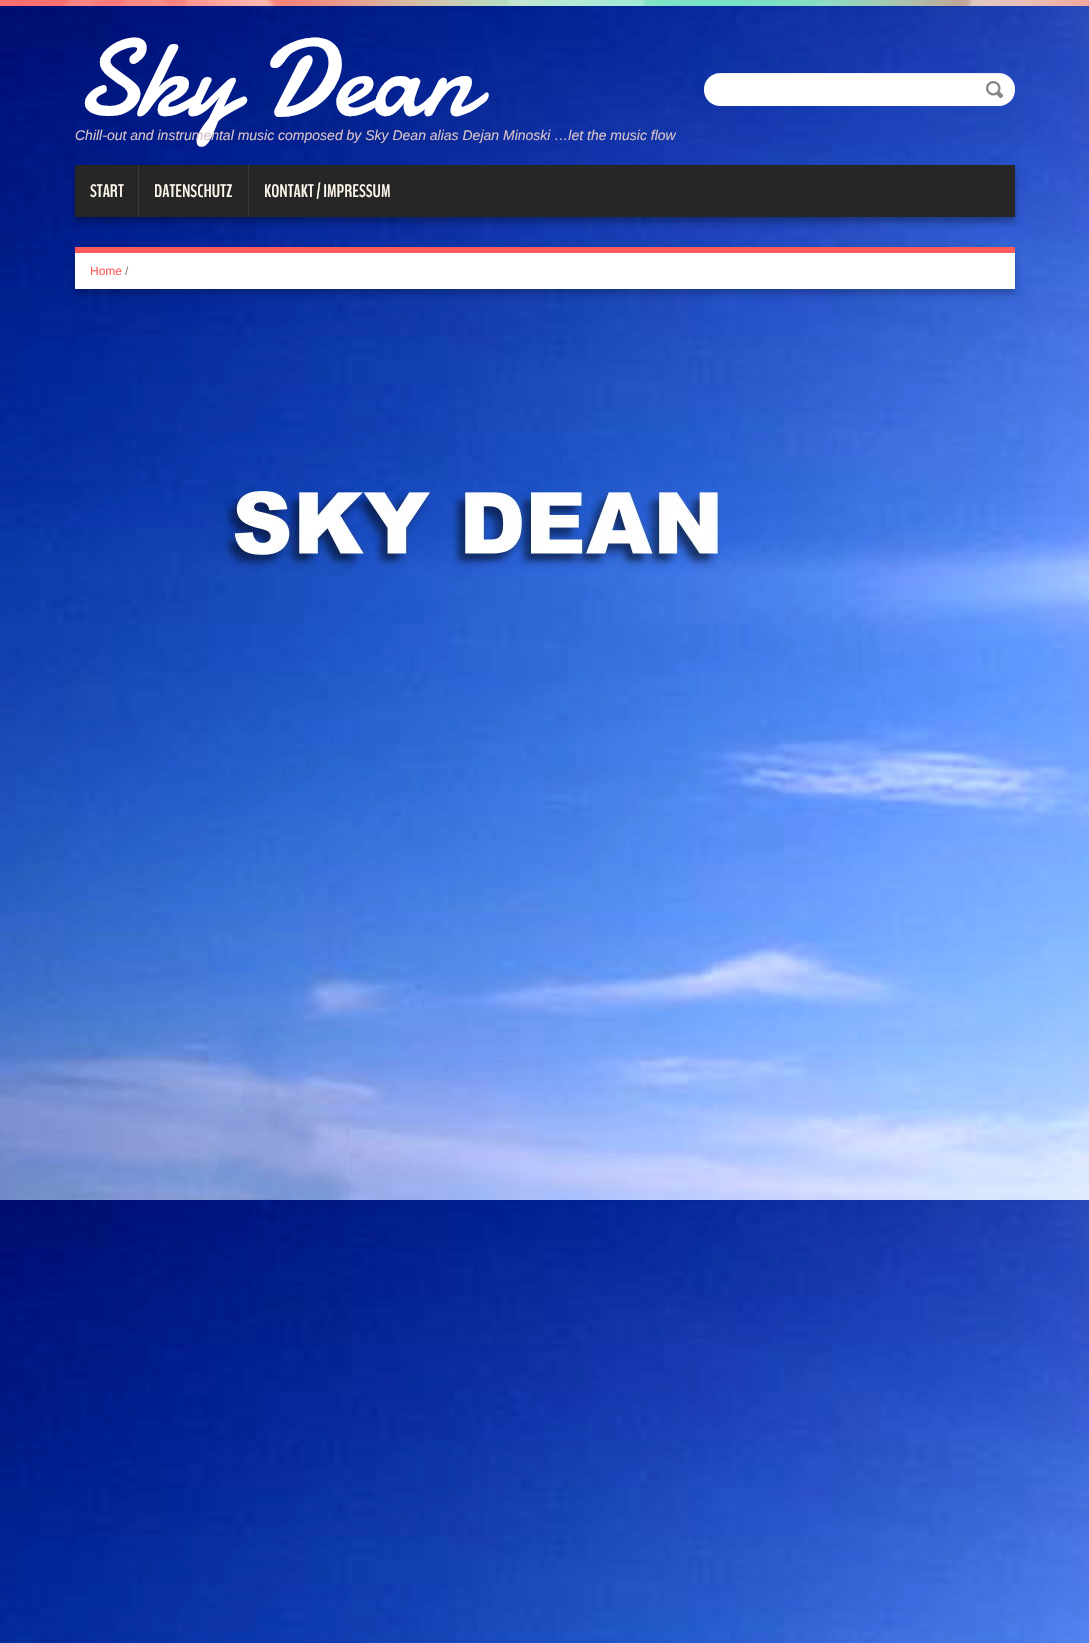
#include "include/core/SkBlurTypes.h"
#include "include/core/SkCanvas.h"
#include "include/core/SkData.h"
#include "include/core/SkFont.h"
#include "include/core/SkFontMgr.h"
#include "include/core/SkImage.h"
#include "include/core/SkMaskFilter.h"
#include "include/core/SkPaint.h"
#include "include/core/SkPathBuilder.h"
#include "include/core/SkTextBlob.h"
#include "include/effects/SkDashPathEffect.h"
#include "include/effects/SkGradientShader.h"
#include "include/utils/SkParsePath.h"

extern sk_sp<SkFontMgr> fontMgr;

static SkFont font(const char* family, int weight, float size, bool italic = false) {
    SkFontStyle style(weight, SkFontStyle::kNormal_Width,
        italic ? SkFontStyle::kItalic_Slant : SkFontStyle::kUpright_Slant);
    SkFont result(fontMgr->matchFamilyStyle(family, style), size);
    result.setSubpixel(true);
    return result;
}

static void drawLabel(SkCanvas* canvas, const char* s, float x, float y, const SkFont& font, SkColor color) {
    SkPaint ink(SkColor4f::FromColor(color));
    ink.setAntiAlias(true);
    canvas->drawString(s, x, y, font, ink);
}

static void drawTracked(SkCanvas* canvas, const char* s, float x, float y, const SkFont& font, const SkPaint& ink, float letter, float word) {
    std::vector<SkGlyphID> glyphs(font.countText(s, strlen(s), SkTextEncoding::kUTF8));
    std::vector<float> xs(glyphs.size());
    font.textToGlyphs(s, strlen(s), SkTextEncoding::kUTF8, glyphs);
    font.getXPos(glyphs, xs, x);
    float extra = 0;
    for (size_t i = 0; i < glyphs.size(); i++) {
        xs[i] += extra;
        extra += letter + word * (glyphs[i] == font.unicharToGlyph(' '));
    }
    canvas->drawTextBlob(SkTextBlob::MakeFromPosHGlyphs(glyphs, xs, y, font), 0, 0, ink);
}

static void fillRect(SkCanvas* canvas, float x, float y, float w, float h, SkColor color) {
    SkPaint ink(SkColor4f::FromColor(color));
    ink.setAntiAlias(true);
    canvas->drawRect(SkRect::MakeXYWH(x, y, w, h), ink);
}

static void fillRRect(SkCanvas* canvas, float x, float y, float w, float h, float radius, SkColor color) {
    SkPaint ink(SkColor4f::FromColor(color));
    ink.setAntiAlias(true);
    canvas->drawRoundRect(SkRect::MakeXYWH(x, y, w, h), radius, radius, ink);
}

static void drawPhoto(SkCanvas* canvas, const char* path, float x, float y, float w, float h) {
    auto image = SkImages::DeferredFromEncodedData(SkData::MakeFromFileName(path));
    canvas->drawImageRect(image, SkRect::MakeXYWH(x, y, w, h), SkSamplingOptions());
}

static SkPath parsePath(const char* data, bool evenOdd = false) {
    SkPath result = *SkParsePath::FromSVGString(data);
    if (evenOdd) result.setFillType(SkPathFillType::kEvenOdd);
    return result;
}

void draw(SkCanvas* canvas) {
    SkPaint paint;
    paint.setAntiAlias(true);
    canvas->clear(0xFFFFFFFF);
    drawPhoto(canvas, "assets/img1.png", 0, 6, 1089, 1637);
    drawPhoto(canvas, "assets/img2.png", 0, 0, 1089, 6);
    SkFont font1 = font("Damion", 400, 110);
    paint.setColor(0xFFFFFFFF);
    drawTracked(canvas, "Sky Dean", 75, 115, font1, paint, -1, 0);
    SkFont font2 = font("Liberation Sans", 400, 14, true);
    drawLabel(canvas, "Chill-out and instrumental music composed by Sky Dean alias Dejan Minoski …let the music flow", 75, 140, font2, 0xFFD7C1C6);
    fillRRect(canvas, 704, 73, 311, 33, 16, 0xFFFFFFFF);
    paint.setColor(0x12000000);
    canvas->drawPath(parsePath("M720 74H999C1008 74 1015 81 1015 90V89C1015 80 1008 73 999 73H720C711 73 704 80 704 89V90C704 81 711 74 720 74Z"), paint);
    drawPhoto(canvas, "assets/img3.png", 986, 81, 18, 17);
    paint.setColor(0x54000000);
    paint.setMaskFilter(SkMaskFilter::MakeBlur(kNormal_SkBlurStyle, 3.5f));
    canvas->drawRect(SkRect::MakeXYWH(75, 170, 940, 52), paint);
    paint.setMaskFilter(nullptr);
    fillRect(canvas, 75, 165, 940, 52, 0xFF262626);
    SkFont font3 = font("BenchNine", 700, 18);
    drawLabel(canvas, "START", 90, 197, font3, 0xFFFFF8ED);
    fillRect(canvas, 138, 165, 1, 52, 0xFF3A3A3A);
    drawLabel(canvas, "DATENSCHUTZ", 154, 197, font3, 0xFFFFF8ED);
    fillRect(canvas, 248, 165, 1, 52, 0xFF3A3A3A);
    drawLabel(canvas, "KONTAKT / IMPRESSUM", 264, 197, font3, 0xFFFFF8ED);
    paint.setColor(0x38000000);
    paint.setMaskFilter(SkMaskFilter::MakeBlur(kNormal_SkBlurStyle, 3.5f));
    canvas->drawRect(SkRect::MakeXYWH(75, 252, 940, 42), paint);
    paint.setMaskFilter(nullptr);
    fillRect(canvas, 75, 253, 940, 36, 0xFFFFFFFF);
    fillRect(canvas, 75, 247, 940, 6, 0xFFFF5B5B);
    SkFont font4 = font("Liberation Sans", 400, 12);
    drawLabel(canvas, "Home", 90, 275, font4, 0xFFFF5B5B);
    drawLabel(canvas, "/", 125, 275, font4, 0xFF8B8686);
}
